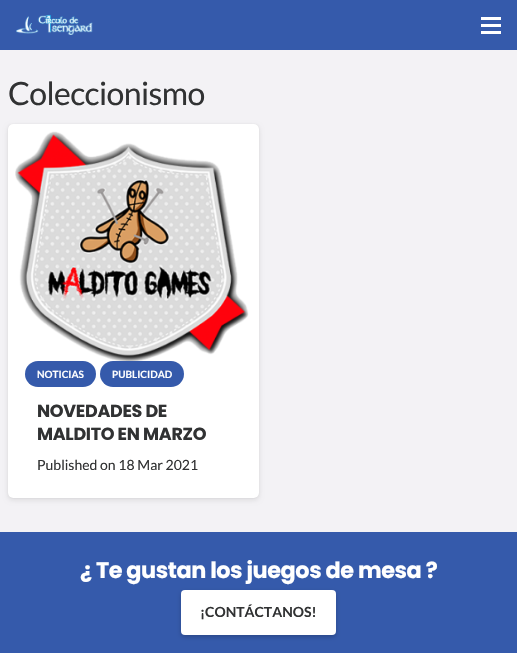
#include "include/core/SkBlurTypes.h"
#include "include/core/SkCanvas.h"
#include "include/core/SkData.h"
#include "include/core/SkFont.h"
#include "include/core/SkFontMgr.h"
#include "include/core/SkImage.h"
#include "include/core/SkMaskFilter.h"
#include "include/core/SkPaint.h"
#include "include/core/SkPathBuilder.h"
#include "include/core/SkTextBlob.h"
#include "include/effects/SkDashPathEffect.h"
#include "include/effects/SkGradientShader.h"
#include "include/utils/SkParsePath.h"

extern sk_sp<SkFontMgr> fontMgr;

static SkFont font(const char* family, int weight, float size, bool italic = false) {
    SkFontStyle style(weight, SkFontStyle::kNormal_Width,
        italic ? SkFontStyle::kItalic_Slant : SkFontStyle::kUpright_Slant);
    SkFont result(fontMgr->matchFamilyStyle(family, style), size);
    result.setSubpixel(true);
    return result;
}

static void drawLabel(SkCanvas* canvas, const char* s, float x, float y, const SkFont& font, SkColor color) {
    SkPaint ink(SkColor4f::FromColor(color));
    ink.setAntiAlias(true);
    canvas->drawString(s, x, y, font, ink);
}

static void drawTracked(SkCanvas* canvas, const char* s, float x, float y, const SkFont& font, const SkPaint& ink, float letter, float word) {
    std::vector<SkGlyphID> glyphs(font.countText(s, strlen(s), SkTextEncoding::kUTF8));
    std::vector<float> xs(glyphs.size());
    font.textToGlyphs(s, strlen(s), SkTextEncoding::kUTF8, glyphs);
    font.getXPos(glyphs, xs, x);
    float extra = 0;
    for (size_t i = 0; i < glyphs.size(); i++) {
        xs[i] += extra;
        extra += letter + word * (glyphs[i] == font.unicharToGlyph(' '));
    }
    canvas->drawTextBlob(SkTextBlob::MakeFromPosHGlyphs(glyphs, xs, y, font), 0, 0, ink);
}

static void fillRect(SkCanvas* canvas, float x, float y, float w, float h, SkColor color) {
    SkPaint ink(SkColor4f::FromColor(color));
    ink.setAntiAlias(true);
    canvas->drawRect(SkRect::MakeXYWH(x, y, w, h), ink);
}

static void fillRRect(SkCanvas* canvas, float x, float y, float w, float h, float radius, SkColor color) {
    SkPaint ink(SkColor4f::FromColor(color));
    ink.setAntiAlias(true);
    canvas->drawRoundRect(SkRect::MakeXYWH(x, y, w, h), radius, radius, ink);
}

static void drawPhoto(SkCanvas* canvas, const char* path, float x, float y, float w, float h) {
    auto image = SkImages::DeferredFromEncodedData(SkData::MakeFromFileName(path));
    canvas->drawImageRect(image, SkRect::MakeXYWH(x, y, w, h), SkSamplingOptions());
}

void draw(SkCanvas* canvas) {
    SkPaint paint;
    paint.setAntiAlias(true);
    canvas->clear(0xFFF3F2F5);
    fillRect(canvas, 0, 0, 517, 50, 0xFF355AAB);
    drawPhoto(canvas, "assets/img1.png", 16, 15, 77, 20);
    fillRect(canvas, 481, 24, 20, 3, 0xFFFFFFFF);
    fillRect(canvas, 481, 17, 20, 3, 0xFFFFFFFF);
    fillRect(canvas, 481, 31, 20, 3, 0xFFFFFFFF);
    SkFont font1 = font("Lato", 400, 32);
    paint.setColor(0xFF313233);
    drawTracked(canvas, "Coleccionismo", 8, 105, font1, paint, -0.6f, 0);
    paint.setColor(0x1A000000);
    paint.setMaskFilter(SkMaskFilter::MakeBlur(kNormal_SkBlurStyle, 2.5f));
    canvas->drawRoundRect(SkRect::MakeXYWH(8, 126, 251, 374), 5, 5, paint);
    paint.setMaskFilter(nullptr);
    paint.setMaskFilter(SkMaskFilter::MakeBlur(kNormal_SkBlurStyle, 0.5f));
    canvas->drawRoundRect(SkRect::MakeXYWH(8, 124, 251, 374), 5, 5, paint);
    paint.setMaskFilter(nullptr);
    fillRRect(canvas, 8, 124, 251, 374, 5, 0xFFFFFFFF);
    drawPhoto(canvas, "assets/img2.png", 15, 131, 234, 230);
    fillRRect(canvas, 25, 361, 71, 26, 13, 0xFF355AAB);
    SkFont font2 = font("Lato", 700, 10);
    drawLabel(canvas, "NOTICIAS", 37, 378, font2, 0xFFFFFFFF);
    fillRRect(canvas, 100, 361, 84, 26, 13, 0xFF355AAB);
    drawLabel(canvas, "PUBLICIDAD", 112, 378, font2, 0xFFFFFFFF);
    SkFont font3 = font("Poppins", 700, 17.5f);
    paint.setColor(0xFF313233);
    drawTracked(canvas, "NOVEDADES DE", 37, 417, font3, paint, -0.3f, 0);
    drawTracked(canvas, "MALDITO EN MARZO", 37, 440, font3, paint, -0.3f, 0);
    SkFont font4 = font("Lato", 400, 14);
    drawLabel(canvas, "Published on 18 Mar 2021", 37, 470, font4, 0xFF313233);
    fillRect(canvas, 0, 532, 517, 121, 0xFF355AAB);
    SkFont font5 = font("Poppins", 700, 22.4f);
    paint.setColor(0xFFFFFFFF);
    drawTracked(canvas, "¿ Te gustan los juegos de mesa ?", 80, 578, font5, paint, -0.45f, 0);
    paint.setColor(0x33000000);
    paint.setMaskFilter(SkMaskFilter::MakeBlur(kNormal_SkBlurStyle, 2));
    canvas->drawRoundRect(SkRect::MakeXYWH(181, 592, 155, 45), 4, 4, paint);
    paint.setMaskFilter(nullptr);
    fillRRect(canvas, 181, 590, 155, 45, 4, 0xFFFFFFFF);
    SkFont font6 = font("Lato", 700, 14);
    drawLabel(canvas, "¡CONTÁCTANOS!", 200, 617, font6, 0xFF313233);
}
